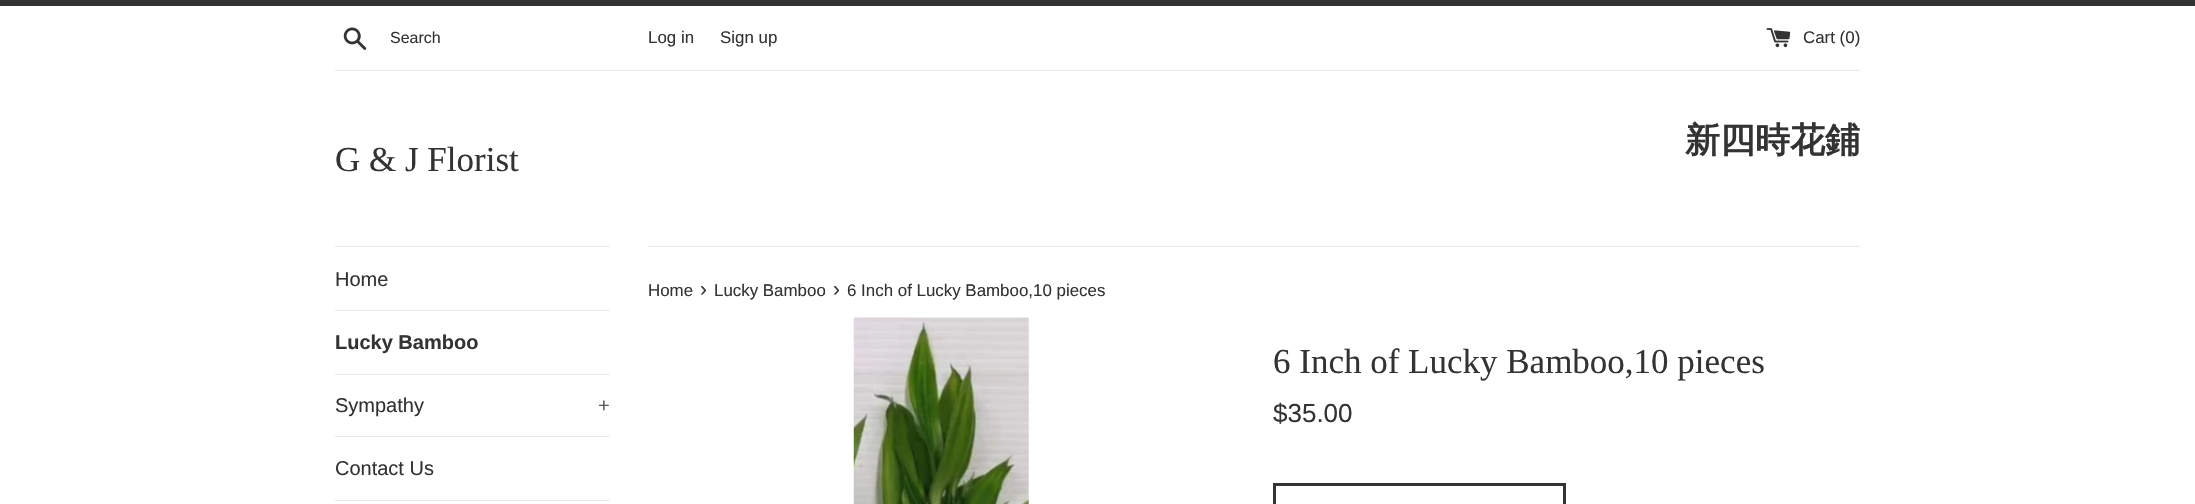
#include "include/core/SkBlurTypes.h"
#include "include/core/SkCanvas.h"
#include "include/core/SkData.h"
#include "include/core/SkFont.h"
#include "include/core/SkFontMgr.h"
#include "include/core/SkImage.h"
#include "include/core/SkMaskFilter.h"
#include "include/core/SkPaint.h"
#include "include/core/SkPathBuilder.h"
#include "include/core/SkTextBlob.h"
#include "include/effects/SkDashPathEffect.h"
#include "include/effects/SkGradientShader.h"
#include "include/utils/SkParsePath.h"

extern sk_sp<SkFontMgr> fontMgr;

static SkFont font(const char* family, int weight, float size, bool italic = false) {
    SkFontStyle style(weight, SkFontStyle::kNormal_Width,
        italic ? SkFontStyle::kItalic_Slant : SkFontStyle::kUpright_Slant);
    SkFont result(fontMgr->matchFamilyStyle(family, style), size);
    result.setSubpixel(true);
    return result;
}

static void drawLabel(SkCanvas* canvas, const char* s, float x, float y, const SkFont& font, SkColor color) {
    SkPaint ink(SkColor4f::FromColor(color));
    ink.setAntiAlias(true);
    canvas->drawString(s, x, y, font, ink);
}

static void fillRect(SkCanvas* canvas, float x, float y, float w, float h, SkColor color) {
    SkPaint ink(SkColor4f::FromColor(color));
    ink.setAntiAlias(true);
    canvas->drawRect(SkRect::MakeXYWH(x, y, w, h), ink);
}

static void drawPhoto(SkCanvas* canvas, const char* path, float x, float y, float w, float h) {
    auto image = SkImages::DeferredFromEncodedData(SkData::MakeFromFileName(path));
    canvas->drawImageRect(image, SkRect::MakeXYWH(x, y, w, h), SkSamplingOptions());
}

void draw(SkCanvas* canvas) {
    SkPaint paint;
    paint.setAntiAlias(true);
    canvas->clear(0xFFFFFFFF);
    fillRect(canvas, 0, 0, 2195, 6, 0xFF333333);
    drawPhoto(canvas, "assets/img1.png", 343, 27, 24, 23);
    SkFont font1 = font("Liberation Sans", 400, 16);
    drawLabel(canvas, "Search", 390, 43, font1, 0xFF333333);
    SkFont font2 = font("Liberation Sans", 400, 16.9f);
    drawLabel(canvas, "Log in", 648, 43, font2, 0xFF333333);
    drawLabel(canvas, "Sign up", 720, 43, font2, 0xFF333333);
    drawPhoto(canvas, "assets/img2.png", 1766, 28, 25, 20);
    drawLabel(canvas, "Cart (0)", 1803, 43, font2, 0xFF333333);
    fillRect(canvas, 335, 70, 1525, 1, 0xFFE8E8E8);
    SkFont font3 = font("Liberation Serif", 400, 35);
    drawLabel(canvas, "G & J Florist", 335, 171, font3, 0xFF333333);
    SkFont font4 = font("WenQuanYi Zen Hei", 700, 35);
    drawLabel(canvas, "新四時花鋪", 1685, 152, font4, 0xFF333333);
    fillRect(canvas, 335, 246, 275, 1, 0xFFE8E8E8);
    fillRect(canvas, 335, 310, 275, 1, 0xFFE8E8E8);
    SkFont font5 = font("Liberation Sans", 400, 20);
    drawLabel(canvas, "Home", 335, 286, font5, 0xFF333333);
    fillRect(canvas, 335, 374, 275, 1, 0xFFE8E8E8);
    SkFont font6 = font("Liberation Sans", 700, 20);
    drawLabel(canvas, "Lucky Bamboo", 335, 349, font6, 0xFF333333);
    fillRect(canvas, 335, 436, 275, 1, 0xFFE8E8E8);
    drawLabel(canvas, "Sympathy", 335, 412, font5, 0xFF333333);
    drawLabel(canvas, "+", 598, 412, font5, 0xFF5C5C5C);
    fillRect(canvas, 335, 500, 275, 1, 0xFFE8E8E8);
    drawLabel(canvas, "Contact Us", 335, 475, font5, 0xFF333333);
    fillRect(canvas, 648, 246, 1212, 1, 0xFFE8E8E8);
    drawLabel(canvas, "Home", 648, 296, font2, 0xFF333333);
    SkFont font7 = font("Liberation Sans", 400, 21);
    drawLabel(canvas, "›", 700, 296, font7, 0xFF333333);
    drawLabel(canvas, "Lucky Bamboo", 714, 296, font2, 0xFF333333);
    drawLabel(canvas, "›", 833, 296, font7, 0xFF333333);
    drawLabel(canvas, "6 Inch of Lucky Bamboo,10 pieces", 847, 296, font2, 0xFF333333);
    drawPhoto(canvas, "assets/img3.png", 853, 317, 176, 187);
    drawLabel(canvas, "6 Inch of Lucky Bamboo,10 pieces", 1273, 373, font3, 0xFF333333);
    SkFont font8 = font("Liberation Sans", 400, 26);
    drawLabel(canvas, "$35.00", 1273, 422, font8, 0xFF333333);
    paint.setStroke(true);
    paint.setStrokeWidth(3);
    paint.setColor(0xFF333333);
    canvas->drawRect(SkRect::MakeXYWH(1274.5f, 484.5f, 290, 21), paint);
}
